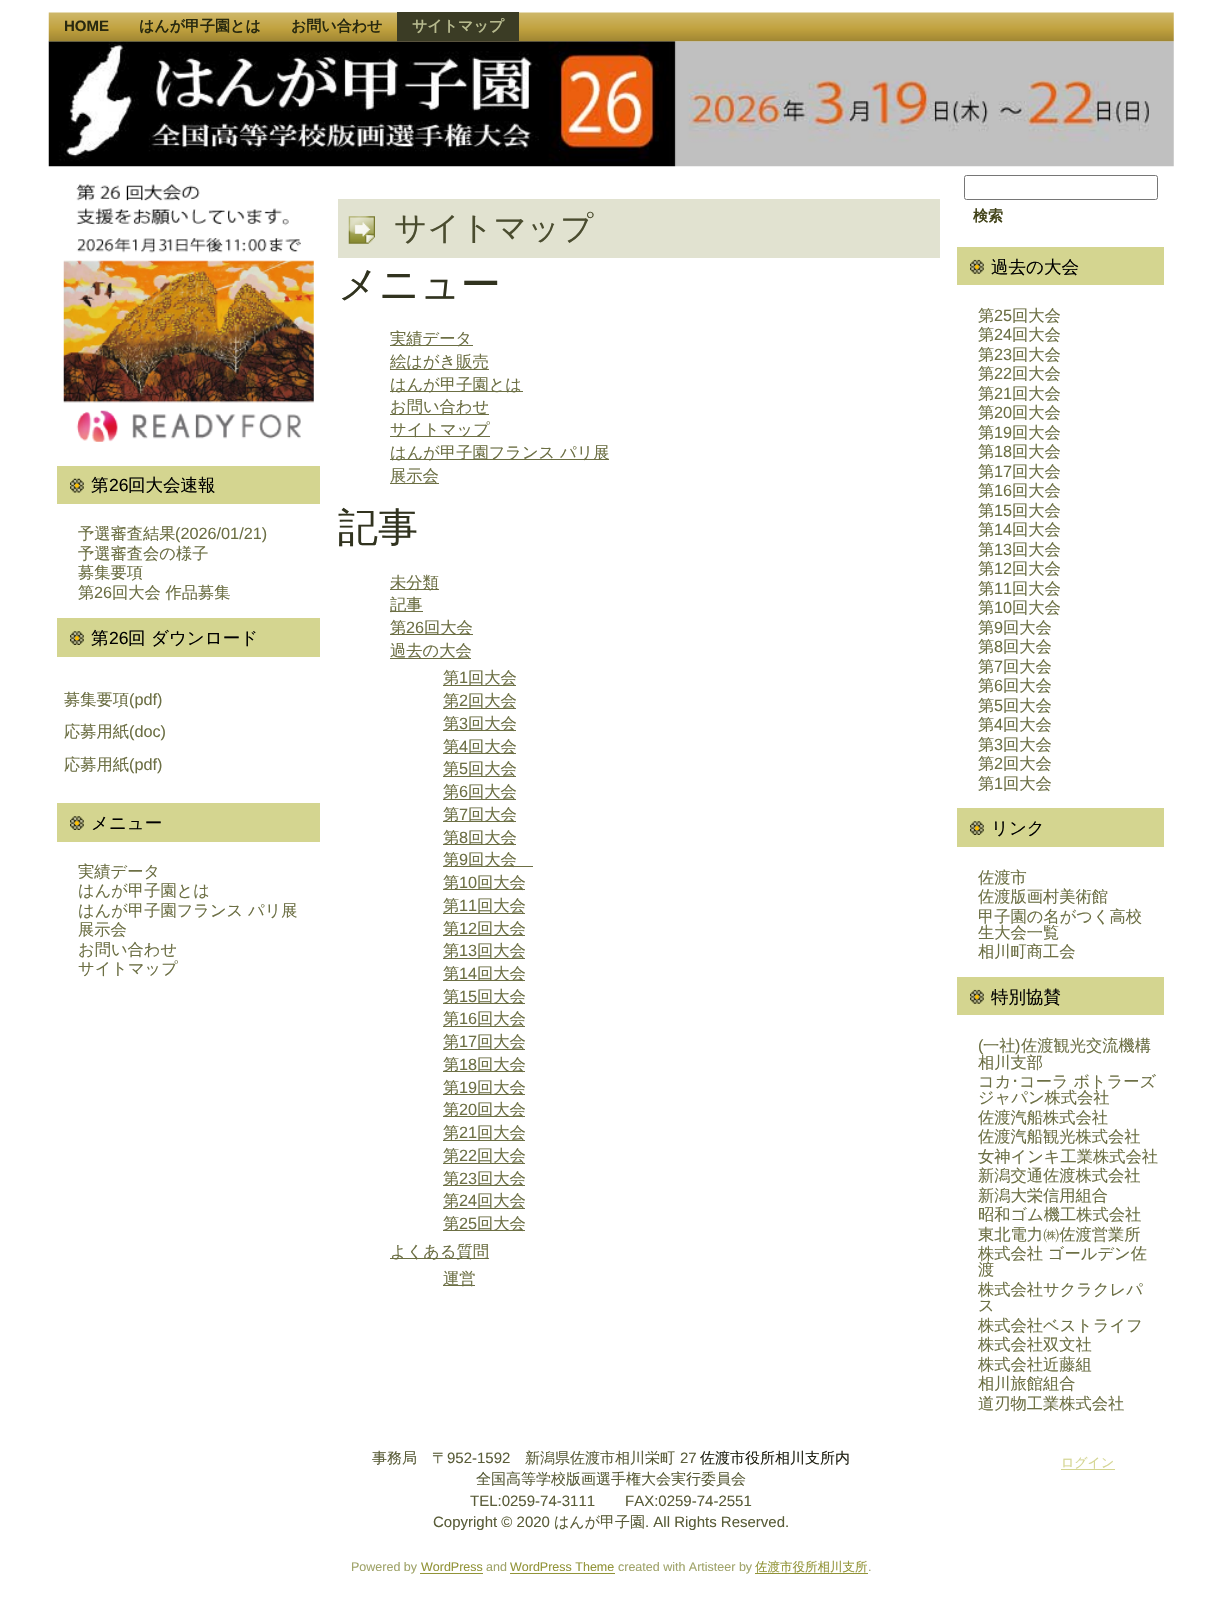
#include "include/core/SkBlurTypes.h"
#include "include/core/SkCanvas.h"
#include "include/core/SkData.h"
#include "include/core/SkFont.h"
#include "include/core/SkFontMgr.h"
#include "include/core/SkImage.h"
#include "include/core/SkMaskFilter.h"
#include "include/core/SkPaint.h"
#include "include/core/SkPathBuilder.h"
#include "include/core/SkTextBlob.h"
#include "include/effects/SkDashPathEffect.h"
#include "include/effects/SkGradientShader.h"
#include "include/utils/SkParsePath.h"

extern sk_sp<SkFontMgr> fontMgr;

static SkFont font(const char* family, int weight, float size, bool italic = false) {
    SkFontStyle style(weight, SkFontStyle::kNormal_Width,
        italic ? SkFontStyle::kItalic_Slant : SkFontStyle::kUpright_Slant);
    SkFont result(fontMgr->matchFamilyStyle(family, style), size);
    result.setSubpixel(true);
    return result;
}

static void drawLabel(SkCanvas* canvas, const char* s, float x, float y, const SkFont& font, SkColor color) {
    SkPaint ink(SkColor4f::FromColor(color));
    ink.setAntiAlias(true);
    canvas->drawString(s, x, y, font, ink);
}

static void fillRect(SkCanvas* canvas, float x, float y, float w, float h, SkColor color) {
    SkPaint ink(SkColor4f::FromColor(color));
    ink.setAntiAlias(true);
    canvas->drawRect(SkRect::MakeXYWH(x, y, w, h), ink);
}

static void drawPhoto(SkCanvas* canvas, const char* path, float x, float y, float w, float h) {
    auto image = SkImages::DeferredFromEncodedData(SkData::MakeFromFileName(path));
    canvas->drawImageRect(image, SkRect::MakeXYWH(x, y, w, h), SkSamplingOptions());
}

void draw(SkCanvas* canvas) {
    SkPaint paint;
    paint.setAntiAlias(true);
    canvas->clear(0xFFFFFFFF);
    drawPhoto(canvas, "assets/img3.png", 48, 41, 1126, 126);
    drawPhoto(canvas, "assets/img1.png", 48, 12, 1126, 30);
    SkFont font1 = font("Liberation Sans", 700, 15);
    drawLabel(canvas, "HOME", 64, 31, font1, 0xFF28290F);
    drawPhoto(canvas, "assets/img2.png", 49, 41, 75, 1);
    SkFont font2 = font("WenQuanYi Zen Hei", 700, 15);
    drawLabel(canvas, "はんが甲子園とは", 139, 31, font2, 0xFF28290F);
    fillRect(canvas, 124, 41, 273, 1, 0xFF625E42);
    drawLabel(canvas, "お問い合わせ", 291, 31, font2, 0xFF28290F);
    fillRect(canvas, 397, 12, 122, 29, 0xFF3B3C25);
    drawLabel(canvas, "サイトマップ", 412, 31, font2, 0xFFB6B98D);
    drawPhoto(canvas, "assets/img4.png", 63, 184, 251, 258);
    fillRect(canvas, 57, 466, 263, 38, 0xFFD4D590);
    drawPhoto(canvas, "assets/img5.png", 70, 478, 14, 15);
    SkFont font3 = font("WenQuanYi Zen Hei", 500, 17.5f);
    drawLabel(canvas, "第", 91, 491, font3, 0xFF000000);
    SkFont font4 = font("Liberation Sans", 400, 17.5f);
    drawLabel(canvas, "26", 109, 491, font4, 0xFF000000);
    drawLabel(canvas, "回大会速報", 128, 491, font3, 0xFF000000);
    SkFont font5 = font("WenQuanYi Zen Hei", 500, 16.25f);
    drawLabel(canvas, "予選審査結果", 78, 539, font5, 0xFF6C6F44);
    SkFont font6 = font("Liberation Sans", 400, 16.25f);
    drawLabel(canvas, "(2026/01/21)", 175, 539, font6, 0xFF6C6F44);
    drawLabel(canvas, "予選審査会の様子", 78, 559, font5, 0xFF6C6F44);
    drawLabel(canvas, "募集要項", 78, 578, font5, 0xFF6C6F44);
    drawLabel(canvas, "第", 78, 598, font5, 0xFF6C6F44);
    drawLabel(canvas, "26", 94, 598, font6, 0xFF6C6F44);
    drawLabel(canvas, "回大会 作品募集", 112, 598, font5, 0xFF6C6F44);
    fillRect(canvas, 57, 618, 263, 39, 0xFFD4D590);
    drawPhoto(canvas, "assets/img6.png", 70, 631, 14, 14);
    drawLabel(canvas, "第", 91, 644, font3, 0xFF000000);
    drawLabel(canvas, "26", 109, 644, font4, 0xFF000000);
    drawLabel(canvas, "回", 128, 644, font3, 0xFF000000);
    drawLabel(canvas, "ダウンロード", 151, 644, font3, 0xFF000000);
    drawLabel(canvas, "募集要項", 64, 705, font5, 0xFF6C6F44);
    drawLabel(canvas, "(pdf)", 129, 705, font6, 0xFF6C6F44);
    drawLabel(canvas, "応募用紙", 64, 737, font5, 0xFF6C6F44);
    drawLabel(canvas, "(doc)", 129, 737, font6, 0xFF6C6F44);
    drawLabel(canvas, "応募用紙", 64, 770, font5, 0xFF6C6F44);
    drawLabel(canvas, "(pdf)", 129, 770, font6, 0xFF6C6F44);
    fillRect(canvas, 57, 803, 263, 39, 0xFFD4D590);
    drawPhoto(canvas, "assets/img6.png", 70, 816, 14, 14);
    drawLabel(canvas, "メニュー", 91, 829, font3, 0xFF000000);
    drawLabel(canvas, "実績データ", 78, 877, font5, 0xFF6C6F44);
    drawLabel(canvas, "はんが甲子園とは", 78, 896, font5, 0xFF6C6F44);
    drawLabel(canvas, "はんが甲子園フランス パリ展", 78, 916, font5, 0xFF6C6F44);
    drawLabel(canvas, "展示会", 78, 935, font5, 0xFF6C6F44);
    drawLabel(canvas, "お問い合わせ", 78, 955, font5, 0xFF6C6F44);
    drawLabel(canvas, "サイトマップ", 78, 974, font5, 0xFF6C6F44);
    fillRect(canvas, 338, 199, 602, 59, 0xFFE1E2D0);
    drawPhoto(canvas, "assets/img7.png", 348, 216, 27, 28);
    SkFont font7 = font("WenQuanYi Zen Hei", 500, 32.5f);
    drawLabel(canvas, "サイトマップ", 394, 239, font7, 0xFF4A4C2F);
    SkFont font8 = font("WenQuanYi Zen Hei", 500, 40);
    drawLabel(canvas, "メニュー", 338, 298, font8, 0xFF31331F);
    fillRect(canvas, 390, 345, 83, 1, 0xFF6C6F44);
    drawLabel(canvas, "実績データ", 390, 344, font5, 0xFF6C6F44);
    fillRect(canvas, 390, 369, 99, 1, 0xFF6C6F44);
    drawLabel(canvas, "絵はがき販売", 390, 367, font5, 0xFF6C6F44);
    fillRect(canvas, 390, 391, 133, 1, 0xFF6C6F44);
    drawLabel(canvas, "はんが甲子園とは", 390, 390, font5, 0xFF6C6F44);
    fillRect(canvas, 390, 414, 99, 1, 0xFF6C6F44);
    drawLabel(canvas, "お問い合わせ", 390, 412, font5, 0xFF6C6F44);
    fillRect(canvas, 390, 436, 100, 1, 0xFF6C6F44);
    drawLabel(canvas, "サイトマップ", 390, 435, font5, 0xFF6C6F44);
    fillRect(canvas, 390, 459, 219, 1, 0xFF6C6F44);
    drawLabel(canvas, "はんが甲子園フランス パリ展", 390, 458, font5, 0xFF6C6F44);
    fillRect(canvas, 390, 483, 49, 1, 0xFF6C6F44);
    drawLabel(canvas, "展示会", 390, 481, font5, 0xFF6C6F44);
    drawLabel(canvas, "記事", 338, 541, font8, 0xFF31331F);
    fillRect(canvas, 390, 589, 49, 1, 0xFF6C6F44);
    drawLabel(canvas, "未分類", 390, 588, font5, 0xFF6C6F44);
    fillRect(canvas, 390, 611, 33, 1, 0xFF6C6F44);
    drawLabel(canvas, "記事", 390, 610, font5, 0xFF6C6F44);
    fillRect(canvas, 390, 634, 83, 1, 0xFF6C6F44);
    drawLabel(canvas, "第", 390, 633, font5, 0xFF6C6F44);
    drawLabel(canvas, "26", 406, 633, font6, 0xFF6C6F44);
    drawLabel(canvas, "回大会", 424, 633, font5, 0xFF6C6F44);
    fillRect(canvas, 390, 658, 81, 1, 0xFF6C6F44);
    drawLabel(canvas, "過去の大会", 390, 656, font5, 0xFF6C6F44);
    fillRect(canvas, 443, 685, 73, 1, 0xFF6C6F44);
    drawLabel(canvas, "第", 443, 683, font5, 0xFF6C6F44);
    drawLabel(canvas, "1", 459, 683, font6, 0xFF6C6F44);
    drawLabel(canvas, "回大会", 468, 683, font5, 0xFF6C6F44);
    fillRect(canvas, 443, 708, 73, 1, 0xFF6C6F44);
    drawLabel(canvas, "第", 443, 706, font5, 0xFF6C6F44);
    drawLabel(canvas, "2", 459, 706, font6, 0xFF6C6F44);
    drawLabel(canvas, "回大会", 468, 706, font5, 0xFF6C6F44);
    fillRect(canvas, 443, 730, 73, 1, 0xFF6C6F44);
    drawLabel(canvas, "第", 443, 729, font5, 0xFF6C6F44);
    drawLabel(canvas, "3", 459, 729, font6, 0xFF6C6F44);
    drawLabel(canvas, "回大会", 468, 729, font5, 0xFF6C6F44);
    fillRect(canvas, 443, 753, 73, 1, 0xFF6C6F44);
    drawLabel(canvas, "第", 443, 752, font5, 0xFF6C6F44);
    drawLabel(canvas, "4", 459, 752, font6, 0xFF6C6F44);
    drawLabel(canvas, "回大会", 468, 752, font5, 0xFF6C6F44);
    fillRect(canvas, 443, 776, 73, 1, 0xFF6C6F44);
    drawLabel(canvas, "第", 443, 774, font5, 0xFF6C6F44);
    drawLabel(canvas, "5", 459, 774, font6, 0xFF6C6F44);
    drawLabel(canvas, "回大会", 468, 774, font5, 0xFF6C6F44);
    fillRect(canvas, 443, 799, 73, 1, 0xFF6C6F44);
    drawLabel(canvas, "第", 443, 797, font5, 0xFF6C6F44);
    drawLabel(canvas, "6", 459, 797, font6, 0xFF6C6F44);
    drawLabel(canvas, "回大会", 468, 797, font5, 0xFF6C6F44);
    fillRect(canvas, 443, 821, 73, 1, 0xFF6C6F44);
    drawLabel(canvas, "第", 443, 820, font5, 0xFF6C6F44);
    drawLabel(canvas, "7", 459, 820, font6, 0xFF6C6F44);
    drawLabel(canvas, "回大会", 468, 820, font5, 0xFF6C6F44);
    fillRect(canvas, 443, 844, 73, 1, 0xFF6C6F44);
    drawLabel(canvas, "第", 443, 843, font5, 0xFF6C6F44);
    drawLabel(canvas, "8", 459, 843, font6, 0xFF6C6F44);
    drawLabel(canvas, "回大会", 468, 843, font5, 0xFF6C6F44);
    fillRect(canvas, 443, 866, 90, 1, 0xFF6C6F44);
    drawLabel(canvas, "第", 443, 865, font5, 0xFF6C6F44);
    drawLabel(canvas, "9", 459, 865, font6, 0xFF6C6F44);
    drawLabel(canvas, "回大会", 468, 865, font5, 0xFF6C6F44);
    fillRect(canvas, 443, 889, 82, 1, 0xFF6C6F44);
    drawLabel(canvas, "第", 443, 888, font5, 0xFF6C6F44);
    drawLabel(canvas, "10", 459, 888, font6, 0xFF6C6F44);
    drawLabel(canvas, "回大会", 477, 888, font5, 0xFF6C6F44);
    fillRect(canvas, 443, 913, 82, 1, 0xFF6C6F44);
    drawLabel(canvas, "第", 443, 911, font5, 0xFF6C6F44);
    drawLabel(canvas, "11", 459, 911, font6, 0xFF6C6F44);
    drawLabel(canvas, "回大会", 477, 911, font5, 0xFF6C6F44);
    fillRect(canvas, 443, 935, 82, 1, 0xFF6C6F44);
    drawLabel(canvas, "第", 443, 934, font5, 0xFF6C6F44);
    drawLabel(canvas, "12", 459, 934, font6, 0xFF6C6F44);
    drawLabel(canvas, "回大会", 477, 934, font5, 0xFF6C6F44);
    fillRect(canvas, 443, 958, 82, 1, 0xFF6C6F44);
    drawLabel(canvas, "第", 443, 956, font5, 0xFF6C6F44);
    drawLabel(canvas, "13", 459, 956, font6, 0xFF6C6F44);
    drawLabel(canvas, "回大会", 477, 956, font5, 0xFF6C6F44);
    fillRect(canvas, 443, 980, 82, 1, 0xFF6C6F44);
    drawLabel(canvas, "第", 443, 979, font5, 0xFF6C6F44);
    drawLabel(canvas, "14", 459, 979, font6, 0xFF6C6F44);
    drawLabel(canvas, "回大会", 477, 979, font5, 0xFF6C6F44);
    fillRect(canvas, 443, 1003, 82, 1, 0xFF6C6F44);
    drawLabel(canvas, "第", 443, 1002, font5, 0xFF6C6F44);
    drawLabel(canvas, "15", 459, 1002, font6, 0xFF6C6F44);
    drawLabel(canvas, "回大会", 477, 1002, font5, 0xFF6C6F44);
    fillRect(canvas, 443, 1026, 82, 1, 0xFF6C6F44);
    drawLabel(canvas, "第", 443, 1024, font5, 0xFF6C6F44);
    drawLabel(canvas, "16", 459, 1024, font6, 0xFF6C6F44);
    drawLabel(canvas, "回大会", 477, 1024, font5, 0xFF6C6F44);
    fillRect(canvas, 443, 1049, 82, 1, 0xFF6C6F44);
    drawLabel(canvas, "第", 443, 1047, font5, 0xFF6C6F44);
    drawLabel(canvas, "17", 459, 1047, font6, 0xFF6C6F44);
    drawLabel(canvas, "回大会", 477, 1047, font5, 0xFF6C6F44);
    fillRect(canvas, 443, 1071, 82, 1, 0xFF6C6F44);
    drawLabel(canvas, "第", 443, 1070, font5, 0xFF6C6F44);
    drawLabel(canvas, "18", 459, 1070, font6, 0xFF6C6F44);
    drawLabel(canvas, "回大会", 477, 1070, font5, 0xFF6C6F44);
    fillRect(canvas, 443, 1094, 82, 1, 0xFF6C6F44);
    drawLabel(canvas, "第", 443, 1093, font5, 0xFF6C6F44);
    drawLabel(canvas, "19", 459, 1093, font6, 0xFF6C6F44);
    drawLabel(canvas, "回大会", 477, 1093, font5, 0xFF6C6F44);
    fillRect(canvas, 443, 1116, 82, 1, 0xFF6C6F44);
    drawLabel(canvas, "第", 443, 1115, font5, 0xFF6C6F44);
    drawLabel(canvas, "20", 459, 1115, font6, 0xFF6C6F44);
    drawLabel(canvas, "回大会", 477, 1115, font5, 0xFF6C6F44);
    fillRect(canvas, 443, 1140, 82, 1, 0xFF6C6F44);
    drawLabel(canvas, "第", 443, 1138, font5, 0xFF6C6F44);
    drawLabel(canvas, "21", 459, 1138, font6, 0xFF6C6F44);
    drawLabel(canvas, "回大会", 477, 1138, font5, 0xFF6C6F44);
    fillRect(canvas, 443, 1163, 82, 1, 0xFF6C6F44);
    drawLabel(canvas, "第", 443, 1161, font5, 0xFF6C6F44);
    drawLabel(canvas, "22", 459, 1161, font6, 0xFF6C6F44);
    drawLabel(canvas, "回大会", 477, 1161, font5, 0xFF6C6F44);
    fillRect(canvas, 443, 1185, 82, 1, 0xFF6C6F44);
    drawLabel(canvas, "第", 443, 1184, font5, 0xFF6C6F44);
    drawLabel(canvas, "23", 459, 1184, font6, 0xFF6C6F44);
    drawLabel(canvas, "回大会", 477, 1184, font5, 0xFF6C6F44);
    fillRect(canvas, 443, 1208, 82, 1, 0xFF6C6F44);
    drawLabel(canvas, "第", 443, 1206, font5, 0xFF6C6F44);
    drawLabel(canvas, "24", 459, 1206, font6, 0xFF6C6F44);
    drawLabel(canvas, "回大会", 477, 1206, font5, 0xFF6C6F44);
    fillRect(canvas, 443, 1230, 82, 1, 0xFF6C6F44);
    drawLabel(canvas, "第", 443, 1229, font5, 0xFF6C6F44);
    drawLabel(canvas, "25", 459, 1229, font6, 0xFF6C6F44);
    drawLabel(canvas, "回大会", 477, 1229, font5, 0xFF6C6F44);
    fillRect(canvas, 390, 1258, 99, 1, 0xFF6C6F44);
    drawLabel(canvas, "よくある質問", 390, 1257, font5, 0xFF6C6F44);
    fillRect(canvas, 443, 1285, 32, 1, 0xFF6C6F44);
    drawLabel(canvas, "運営", 443, 1284, font5, 0xFF6C6F44);
    paint.setStroke(true);
    paint.setStrokeWidth(1);
    paint.setColor(0xFF767676);
    canvas->drawRoundRect(SkRect::MakeXYWH(964.5f, 175.5f, 193, 24), 2, 2, paint);
    drawLabel(canvas, "検索", 973, 221, font2, 0xFF424319);
    fillRect(canvas, 957, 247, 207, 38, 0xFFD4D590);
    drawPhoto(canvas, "assets/img8.png", 970, 259, 14, 15);
    drawLabel(canvas, "過去の大会", 991, 273, font3, 0xFF000000);
    drawLabel(canvas, "第", 978, 321, font5, 0xFF6C6F44);
    drawLabel(canvas, "25", 994, 321, font6, 0xFF6C6F44);
    drawLabel(canvas, "回大会", 1012, 321, font5, 0xFF6C6F44);
    drawLabel(canvas, "第", 978, 340, font5, 0xFF6C6F44);
    drawLabel(canvas, "24", 994, 340, font6, 0xFF6C6F44);
    drawLabel(canvas, "回大会", 1012, 340, font5, 0xFF6C6F44);
    drawLabel(canvas, "第", 978, 360, font5, 0xFF6C6F44);
    drawLabel(canvas, "23", 994, 360, font6, 0xFF6C6F44);
    drawLabel(canvas, "回大会", 1012, 360, font5, 0xFF6C6F44);
    drawLabel(canvas, "第", 978, 379, font5, 0xFF6C6F44);
    drawLabel(canvas, "22", 994, 379, font6, 0xFF6C6F44);
    drawLabel(canvas, "回大会", 1012, 379, font5, 0xFF6C6F44);
    drawLabel(canvas, "第", 978, 399, font5, 0xFF6C6F44);
    drawLabel(canvas, "21", 994, 399, font6, 0xFF6C6F44);
    drawLabel(canvas, "回大会", 1012, 399, font5, 0xFF6C6F44);
    drawLabel(canvas, "第", 978, 418, font5, 0xFF6C6F44);
    drawLabel(canvas, "20", 994, 418, font6, 0xFF6C6F44);
    drawLabel(canvas, "回大会", 1012, 418, font5, 0xFF6C6F44);
    drawLabel(canvas, "第", 978, 438, font5, 0xFF6C6F44);
    drawLabel(canvas, "19", 994, 438, font6, 0xFF6C6F44);
    drawLabel(canvas, "回大会", 1012, 438, font5, 0xFF6C6F44);
    drawLabel(canvas, "第", 978, 457, font5, 0xFF6C6F44);
    drawLabel(canvas, "18", 994, 457, font6, 0xFF6C6F44);
    drawLabel(canvas, "回大会", 1012, 457, font5, 0xFF6C6F44);
    drawLabel(canvas, "第", 978, 477, font5, 0xFF6C6F44);
    drawLabel(canvas, "17", 994, 477, font6, 0xFF6C6F44);
    drawLabel(canvas, "回大会", 1012, 477, font5, 0xFF6C6F44);
    drawLabel(canvas, "第", 978, 496, font5, 0xFF6C6F44);
    drawLabel(canvas, "16", 994, 496, font6, 0xFF6C6F44);
    drawLabel(canvas, "回大会", 1012, 496, font5, 0xFF6C6F44);
    drawLabel(canvas, "第", 978, 516, font5, 0xFF6C6F44);
    drawLabel(canvas, "15", 994, 516, font6, 0xFF6C6F44);
    drawLabel(canvas, "回大会", 1012, 516, font5, 0xFF6C6F44);
    drawLabel(canvas, "第", 978, 535, font5, 0xFF6C6F44);
    drawLabel(canvas, "14", 994, 535, font6, 0xFF6C6F44);
    drawLabel(canvas, "回大会", 1012, 535, font5, 0xFF6C6F44);
    drawLabel(canvas, "第", 978, 555, font5, 0xFF6C6F44);
    drawLabel(canvas, "13", 994, 555, font6, 0xFF6C6F44);
    drawLabel(canvas, "回大会", 1012, 555, font5, 0xFF6C6F44);
    drawLabel(canvas, "第", 978, 574, font5, 0xFF6C6F44);
    drawLabel(canvas, "12", 994, 574, font6, 0xFF6C6F44);
    drawLabel(canvas, "回大会", 1012, 574, font5, 0xFF6C6F44);
    drawLabel(canvas, "第", 978, 594, font5, 0xFF6C6F44);
    drawLabel(canvas, "11", 994, 594, font6, 0xFF6C6F44);
    drawLabel(canvas, "回大会", 1012, 594, font5, 0xFF6C6F44);
    drawLabel(canvas, "第", 978, 613, font5, 0xFF6C6F44);
    drawLabel(canvas, "10", 994, 613, font6, 0xFF6C6F44);
    drawLabel(canvas, "回大会", 1012, 613, font5, 0xFF6C6F44);
    drawLabel(canvas, "第", 978, 633, font5, 0xFF6C6F44);
    drawLabel(canvas, "9", 994, 633, font6, 0xFF6C6F44);
    drawLabel(canvas, "回大会", 1003, 633, font5, 0xFF6C6F44);
    drawLabel(canvas, "第", 978, 652, font5, 0xFF6C6F44);
    drawLabel(canvas, "8", 994, 652, font6, 0xFF6C6F44);
    drawLabel(canvas, "回大会", 1003, 652, font5, 0xFF6C6F44);
    drawLabel(canvas, "第", 978, 672, font5, 0xFF6C6F44);
    drawLabel(canvas, "7", 994, 672, font6, 0xFF6C6F44);
    drawLabel(canvas, "回大会", 1003, 672, font5, 0xFF6C6F44);
    drawLabel(canvas, "第", 978, 691, font5, 0xFF6C6F44);
    drawLabel(canvas, "6", 994, 691, font6, 0xFF6C6F44);
    drawLabel(canvas, "回大会", 1003, 691, font5, 0xFF6C6F44);
    drawLabel(canvas, "第", 978, 711, font5, 0xFF6C6F44);
    drawLabel(canvas, "5", 994, 711, font6, 0xFF6C6F44);
    drawLabel(canvas, "回大会", 1003, 711, font5, 0xFF6C6F44);
    drawLabel(canvas, "第", 978, 730, font5, 0xFF6C6F44);
    drawLabel(canvas, "4", 994, 730, font6, 0xFF6C6F44);
    drawLabel(canvas, "回大会", 1003, 730, font5, 0xFF6C6F44);
    drawLabel(canvas, "第", 978, 750, font5, 0xFF6C6F44);
    drawLabel(canvas, "3", 994, 750, font6, 0xFF6C6F44);
    drawLabel(canvas, "回大会", 1003, 750, font5, 0xFF6C6F44);
    drawLabel(canvas, "第", 978, 769, font5, 0xFF6C6F44);
    drawLabel(canvas, "2", 994, 769, font6, 0xFF6C6F44);
    drawLabel(canvas, "回大会", 1003, 769, font5, 0xFF6C6F44);
    drawLabel(canvas, "第", 978, 789, font5, 0xFF6C6F44);
    drawLabel(canvas, "1", 994, 789, font6, 0xFF6C6F44);
    drawLabel(canvas, "回大会", 1003, 789, font5, 0xFF6C6F44);
    fillRect(canvas, 957, 808, 207, 39, 0xFFD4D590);
    drawPhoto(canvas, "assets/img9.png", 970, 821, 14, 14);
    drawLabel(canvas, "リンク", 991, 834, font3, 0xFF000000);
    drawLabel(canvas, "佐渡市", 978, 883, font5, 0xFF6C6F44);
    drawLabel(canvas, "佐渡版画村美術館", 978, 902, font5, 0xFF6C6F44);
    drawLabel(canvas, "甲子園の名がつく高校", 978, 922, font5, 0xFF6C6F44);
    drawLabel(canvas, "生大会一覧", 978, 938, font5, 0xFF6C6F44);
    drawLabel(canvas, "相川町商工会", 978, 957, font5, 0xFF6C6F44);
    fillRect(canvas, 957, 977, 207, 38, 0xFFD4D590);
    drawPhoto(canvas, "assets/img8.png", 970, 989, 14, 15);
    drawLabel(canvas, "特別協賛", 991, 1003, font3, 0xFF000000);
    drawLabel(canvas, "(", 978, 1051, font6, 0xFF6C6F44);
    drawLabel(canvas, "一社", 983, 1051, font5, 0xFF6C6F44);
    drawLabel(canvas, ")", 1015, 1051, font6, 0xFF6C6F44);
    drawLabel(canvas, "佐渡観光交流機構", 1021, 1051, font5, 0xFF6C6F44);
    drawLabel(canvas, "相川支部", 978, 1068, font5, 0xFF6C6F44);
    drawLabel(canvas, "コカ", 978, 1087, font5, 0xFF6C6F44);
    SkFont font9 = font("IPAPGothic", 400, 16.25f);
    drawLabel(canvas, "･", 1011, 1087, font9, 0xFF6C6F44);
    drawLabel(canvas, "コーラ ボトラーズ", 1019, 1087, font5, 0xFF6C6F44);
    drawLabel(canvas, "ジャパン株式会社", 978, 1103, font5, 0xFF6C6F44);
    drawLabel(canvas, "佐渡汽船株式会社", 978, 1123, font5, 0xFF6C6F44);
    drawLabel(canvas, "佐渡汽船観光株式会社", 978, 1142, font5, 0xFF6C6F44);
    drawLabel(canvas, "女神インキ工業株式会社", 978, 1162, font5, 0xFF6C6F44);
    drawLabel(canvas, "新潟交通佐渡株式会社", 978, 1181, font5, 0xFF6C6F44);
    drawLabel(canvas, "新潟大栄信用組合", 978, 1201, font5, 0xFF6C6F44);
    drawLabel(canvas, "昭和ゴム機工株式会社", 978, 1220, font5, 0xFF6C6F44);
    drawLabel(canvas, "東北電力㈱佐渡営業所", 978, 1240, font5, 0xFF6C6F44);
    drawLabel(canvas, "株式会社 ゴールデン佐", 978, 1259, font5, 0xFF6C6F44);
    drawLabel(canvas, "渡", 978, 1275, font5, 0xFF6C6F44);
    drawLabel(canvas, "株式会社サクラクレパ", 978, 1295, font5, 0xFF6C6F44);
    drawLabel(canvas, "ス", 978, 1311, font5, 0xFF6C6F44);
    drawLabel(canvas, "株式会社ベストライフ", 978, 1331, font5, 0xFF6C6F44);
    drawLabel(canvas, "株式会社双文社", 978, 1350, font5, 0xFF6C6F44);
    drawLabel(canvas, "株式会社近藤組", 978, 1370, font5, 0xFF6C6F44);
    drawLabel(canvas, "相川旅館組合", 978, 1389, font5, 0xFF6C6F44);
    drawLabel(canvas, "道刃物工業株式会社", 978, 1409, font5, 0xFF6C6F44);
    SkFont font10 = font("WenQuanYi Zen Hei", 500, 15);
    drawLabel(canvas, "事務局　〒", 372, 1463, font10, 0xFF595C38);
    SkFont font11 = font("Liberation Sans", 400, 15);
    drawLabel(canvas, "952-1592", 447, 1463, font11, 0xFF595C38);
    drawLabel(canvas, "新潟県佐渡市相川栄町", 525, 1463, font10, 0xFF595C38);
    drawLabel(canvas, "27", 680, 1463, font11, 0xFF595C38);
    drawLabel(canvas, "佐渡市役所相川支所内", 700, 1463, font10, 0xFF1F2013);
    drawLabel(canvas, "全国高等学校版画選手権大会実行委員会", 476, 1484, font10, 0xFF595C38);
    drawLabel(canvas, "TEL:0259-74-3111", 470, 1506, font11, 0xFF595C38);
    drawLabel(canvas, "FAX:0259-74-2551", 625, 1506, font11, 0xFF595C38);
    drawLabel(canvas, "Copyright © 2020", 433, 1527, font11, 0xFF595C38);
    drawLabel(canvas, "はんが甲子園", 554, 1527, font10, 0xFF595C38);
    drawLabel(canvas, ". All Rights Reserved.", 645, 1527, font11, 0xFF595C38);
    SkFont font12 = font("WenQuanYi Zen Hei", 500, 13);
    drawLabel(canvas, "ログイン", 1061, 1467, font12, 0xFFD4D591);
    fillRect(canvas, 1061, 1469, 54, 1, 0xFFD4D591);
    SkFont font13 = font("Liberation Sans", 400, 12.5f);
    drawLabel(canvas, "Powered by", 351, 1571, font13, 0xFFA0A46A);
    drawLabel(canvas, "WordPress", 421, 1571, font13, 0xFF929438);
    fillRect(canvas, 420, 1573, 63, 1, 0xFF929438);
    drawLabel(canvas, "and", 486, 1571, font13, 0xFFA0A46A);
    drawLabel(canvas, "WordPress Theme", 510, 1571, font13, 0xFF929438);
    fillRect(canvas, 510, 1573, 105, 1, 0xFF929438);
    drawLabel(canvas, "created with Artisteer by", 618, 1571, font13, 0xFFA0A46A);
    SkFont font14 = font("WenQuanYi Zen Hei", 500, 12.5f);
    drawLabel(canvas, "佐渡市役所相川支所", 755, 1571, font14, 0xFF929438);
    fillRect(canvas, 755, 1573, 113, 1, 0xFF929438);
    drawLabel(canvas, ".", 868, 1571, font13, 0xFFA0A46A);
}
